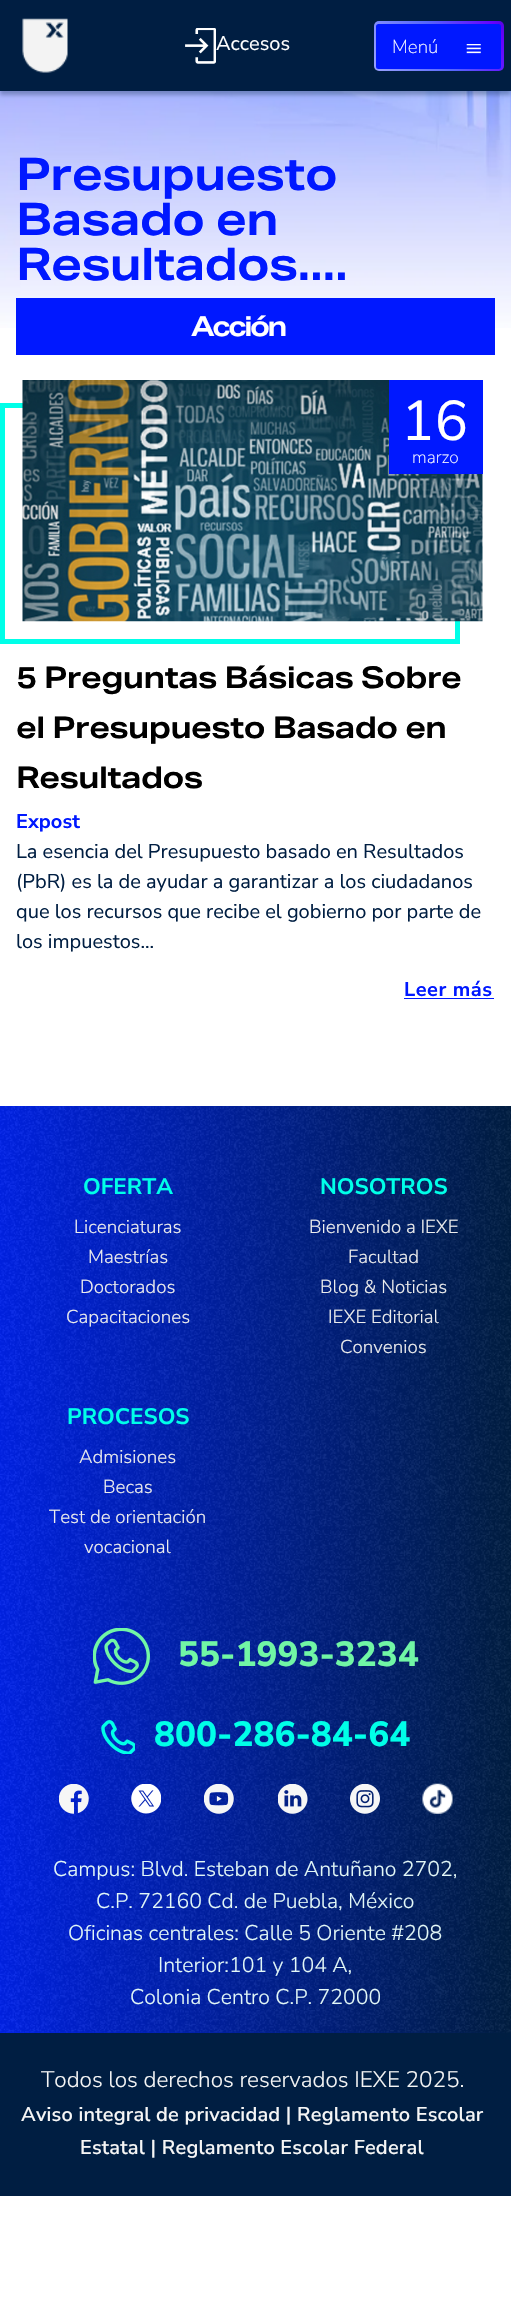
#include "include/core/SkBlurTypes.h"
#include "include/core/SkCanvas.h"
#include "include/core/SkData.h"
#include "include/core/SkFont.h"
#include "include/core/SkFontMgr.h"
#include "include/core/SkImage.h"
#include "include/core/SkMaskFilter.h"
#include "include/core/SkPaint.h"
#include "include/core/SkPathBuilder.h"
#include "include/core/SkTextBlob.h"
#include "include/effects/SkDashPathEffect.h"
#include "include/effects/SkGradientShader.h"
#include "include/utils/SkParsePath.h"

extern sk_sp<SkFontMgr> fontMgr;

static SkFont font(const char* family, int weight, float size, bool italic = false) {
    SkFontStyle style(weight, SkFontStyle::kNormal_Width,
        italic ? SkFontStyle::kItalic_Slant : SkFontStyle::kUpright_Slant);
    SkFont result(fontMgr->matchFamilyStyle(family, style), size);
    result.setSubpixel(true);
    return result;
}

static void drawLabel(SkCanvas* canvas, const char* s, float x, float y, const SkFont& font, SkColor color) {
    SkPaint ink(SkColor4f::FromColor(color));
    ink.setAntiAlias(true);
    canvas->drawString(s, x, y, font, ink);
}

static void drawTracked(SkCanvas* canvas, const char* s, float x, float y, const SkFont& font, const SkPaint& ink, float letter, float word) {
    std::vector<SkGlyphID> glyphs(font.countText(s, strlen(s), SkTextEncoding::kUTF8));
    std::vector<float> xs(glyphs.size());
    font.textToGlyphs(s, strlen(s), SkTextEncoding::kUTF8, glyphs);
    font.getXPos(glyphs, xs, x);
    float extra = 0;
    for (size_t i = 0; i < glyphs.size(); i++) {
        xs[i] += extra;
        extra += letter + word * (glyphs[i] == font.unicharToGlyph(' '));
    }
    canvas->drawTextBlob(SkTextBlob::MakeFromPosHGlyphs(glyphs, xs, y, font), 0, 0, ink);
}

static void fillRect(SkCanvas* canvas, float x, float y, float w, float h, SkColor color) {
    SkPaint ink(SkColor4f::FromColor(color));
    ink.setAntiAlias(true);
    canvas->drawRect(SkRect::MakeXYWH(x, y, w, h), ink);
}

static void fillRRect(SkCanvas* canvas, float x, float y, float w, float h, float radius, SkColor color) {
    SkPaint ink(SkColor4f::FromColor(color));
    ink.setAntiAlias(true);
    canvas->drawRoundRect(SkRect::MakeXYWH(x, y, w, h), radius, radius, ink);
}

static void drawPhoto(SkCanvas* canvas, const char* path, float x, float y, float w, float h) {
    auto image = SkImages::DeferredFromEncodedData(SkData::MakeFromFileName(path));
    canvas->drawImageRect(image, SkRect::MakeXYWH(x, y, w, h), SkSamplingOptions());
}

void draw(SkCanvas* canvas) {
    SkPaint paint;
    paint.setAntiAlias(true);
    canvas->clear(0xFFFFFFFF);
    drawPhoto(canvas, "assets/img1.png", 0, 91, 511, 237);
    paint.setColor(0x4D001C3A);
    paint.setMaskFilter(SkMaskFilter::MakeBlur(kNormal_SkBlurStyle, 2));
    canvas->drawRect(SkRect::MakeXYWH(0, 4, 511, 91), paint);
    paint.setMaskFilter(nullptr);
    fillRect(canvas, 0, 0, 511, 91, 0xFF001E42);
    drawPhoto(canvas, "assets/img2.png", 22, 18, 46, 55);
    drawPhoto(canvas, "assets/img3.png", 185, 28, 31, 36);
    SkFont font1 = font("Nunito Sans", 400, 20);
    drawLabel(canvas, "Accesos", 216, 50, font1, 0xFFFFFFFF);
    {
        const SkColor colors[] = {0xFFBEC4FD, 0xFF919BFC, 0xFF5666FC, 0xFF6600FF, 0xFF001E42, 0xFF0018FF, 0xFF00A2FF, 0xFF00FFE8};
        const float stops[] = {0, 0.14f, 0.29f, 0.43f, 0.57f, 0.71f, 0.86f, 1};
        const SkPoint ends[] = {{390, 199}, {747, -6.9f}};
        paint.setShader(SkGradientShader::MakeLinear(ends, colors, stops, 8, SkTileMode::kClamp));
        paint.setAlpha(255);
    }
    canvas->drawRoundRect(SkRect::MakeXYWH(374, 21, 130, 50), 5, 5, paint);
    fillRRect(canvas, 376, 24, 125, 45, 2.5f, 0xFF0018FF);
    SkFont font2 = font("Nunito Sans", 200, 18.75f);
    drawLabel(canvas, "Menú", 392, 53, font2, 0xFFFFFFFF);
    drawPhoto(canvas, "assets/img4.png", 466, 44, 15, 10);
    SkFont font3 = font("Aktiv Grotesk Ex", 700, 45);
    paint.setShader(nullptr);
    paint.setColor(0xFF0018FF);
    drawTracked(canvas, "Presupuesto", 16, 190, font3, paint, -0.75f, 0);
    drawTracked(canvas, "Basado en", 16, 235, font3, paint, -0.75f, 0);
    drawTracked(canvas, "Resultados....", 16, 280, font3, paint, -0.75f, 0);
    fillRect(canvas, 16, 298, 479, 57, 0xFF0018FF);
    SkFont font4 = font("Aktiv Grotesk Ex", 700, 27.5f);
    paint.setColor(0xFFFFFFFF);
    drawTracked(canvas, "Acción", 191, 336, font4, paint, -2.5f, 0);
    paint.setStroke(true);
    paint.setStrokeWidth(5);
    paint.setColor(0xFF00FFE8);
    canvas->drawRect(SkRect::MakeXYWH(2.5f, 405.5f, 455, 236), paint);
    drawPhoto(canvas, "assets/img5.png", 22, 380, 461, 242);
    fillRect(canvas, 389, 380, 94, 94, 0xFF0018FF);
    SkFont font5 = font("Nunito Sans", 400, 56);
    drawLabel(canvas, "16", 401, 440, font5, 0xFFFFFFFF);
    SkFont font6 = font("Nunito Sans", 200, 17.5f);
    drawLabel(canvas, "marzo", 412, 463, font6, 0xFFFFFFFF);
    SkFont font7 = font("Aktiv Grotesk Ex", 700, 30);
    paint.setStroke(false);
    paint.setColor(0xFF000000);
    drawTracked(canvas, "5 Preguntas Básicas Sobre", 16, 688, font7, paint, -0.6f, 0);
    drawTracked(canvas, "el Presupuesto Basado en", 16, 738, font7, paint, -0.6f, 0);
    drawTracked(canvas, "Resultados", 16, 788, font7, paint, -0.6f, 0);
    SkFont font8 = font("Nunito Sans", 700, 20);
    drawLabel(canvas, "Expost", 16, 828, font8, 0xFF0018FF);
    drawLabel(canvas, "La esencia del Presupuesto basado en Resultados", 16, 858, font1, 0xFF001E42);
    drawLabel(canvas, "(PbR) es la de ayudar a garantizar a los ciudadanos", 16, 888, font1, 0xFF001E42);
    drawLabel(canvas, "que los recursos que recibe el gobierno por parte de", 16, 918, font1, 0xFF001E42);
    drawLabel(canvas, "los impuestos...", 16, 948, font1, 0xFF001E42);
    paint.setColor(0xFF0018FF);
    drawTracked(canvas, "Leer más", 404, 996, font8, paint, 0.5f, 0);
    fillRect(canvas, 404, 998, 90, 1, 0xFF0018FF);
    {
        const SkColor colors[] = {0xFF0022ED, 0xFF001E42};
        const float stops[] = {0, 1};
        const SkPoint ends[] = {{0, 1569}, {511, 1569}};
        paint.setShader(SkGradientShader::MakeLinear(ends, colors, stops, 2, SkTileMode::kClamp));
        paint.setAlpha(255);
    }
    canvas->drawRect(SkRect::MakeXYWH(0, 1106, 511, 927), paint);
    drawPhoto(canvas, "assets/img6.png", 0, 1106, 511, 927);
    SkFont font9 = font("Nunito Sans", 700, 22.5f);
    drawLabel(canvas, "OFERTA", 83, 1194, font9, 0xFF00FFE8);
    SkFont font10 = font("Nunito Sans", 300, 18.75f);
    drawLabel(canvas, "Licenciaturas", 74, 1233, font10, 0xFFEDEDED);
    drawLabel(canvas, "Maestrías", 88, 1263, font10, 0xFFEDEDED);
    drawLabel(canvas, "Doctorados", 80, 1293, font10, 0xFFEDEDED);
    drawLabel(canvas, "Capacitaciones", 66, 1323, font10, 0xFFEDEDED);
    drawLabel(canvas, "NOSOTROS", 320, 1194, font9, 0xFF00FFE8);
    drawLabel(canvas, "Bienvenido a IEXE", 309, 1233, font10, 0xFFEDEDED);
    drawLabel(canvas, "Facultad", 348, 1263, font10, 0xFFEDEDED);
    drawLabel(canvas, "Blog & Noticias", 320, 1293, font10, 0xFFEDEDED);
    drawLabel(canvas, "IEXE Editorial", 328, 1323, font10, 0xFFEDEDED);
    drawLabel(canvas, "Convenios", 340, 1353, font10, 0xFFEDEDED);
    drawLabel(canvas, "PROCESOS", 67, 1424, font9, 0xFF00FFE8);
    drawLabel(canvas, "Admisiones", 79, 1463, font10, 0xFFEDEDED);
    drawLabel(canvas, "Becas", 103, 1493, font10, 0xFFEDEDED);
    drawLabel(canvas, "Test de orientación", 49, 1523, font10, 0xFFEDEDED);
    drawLabel(canvas, "vocacional", 84, 1553, font10, 0xFFEDEDED);
    drawPhoto(canvas, "assets/img7.png", 93, 1628, 57, 57);
    SkFont font11 = font("Nunito Sans", 800, 35);
    drawLabel(canvas, "55-1993-3234", 178, 1666, font11, 0xFF71F6A5);
    drawPhoto(canvas, "assets/img8.png", 101, 1720, 34, 34);
    drawLabel(canvas, "800-286-84-64", 154, 1746, font11, 0xFF00FFE8);
    drawPhoto(canvas, "assets/img9.png", 59, 1784, 30, 30);
    drawPhoto(canvas, "assets/img10.png", 131, 1784, 30, 30);
    drawPhoto(canvas, "assets/img11.png", 204, 1784, 30, 30);
    drawPhoto(canvas, "assets/img12.png", 278, 1784, 30, 30);
    drawPhoto(canvas, "assets/img13.png", 350, 1784, 30, 30);
    drawPhoto(canvas, "assets/img14.png", 422, 1783, 31, 31);
    SkFont font12 = font("Nunito Sans", 300, 21.25f);
    drawLabel(canvas, "Campus: Blvd. Esteban de Antuñano 2702,", 53, 1876, font12, 0xFFE3F8F7);
    drawLabel(canvas, "C.P. 72160 Cd. de Puebla, México", 96, 1908, font12, 0xFFE3F8F7);
    drawLabel(canvas, "Oficinas centrales: Calle 5 Oriente #208", 68, 1940, font12, 0xFFE3F8F7);
    drawLabel(canvas, "Interior:101 y 104 A,", 158, 1972, font12, 0xFFE3F8F7);
    drawLabel(canvas, "Colonia Centro C.P. 72000", 130, 2004, font12, 0xFFE3F8F7);
    fillRect(canvas, 0, 2033, 511, 163, 0xFF001E42);
    SkFont font13 = font("Nunito Sans", 300, 22.5f);
    drawLabel(canvas, "Todos los derechos reservados IEXE 2025.", 41, 2087, font13, 0xFFF6F6F6);
    SkFont font14 = font("Nunito Sans", 600, 20);
    paint.setShader(nullptr);
    paint.setColor(0xFFF6F6F6);
    drawTracked(canvas, "Aviso integral de privacidad | Reglamento Escolar", 21, 2121, font14, paint, 0.2f, 0);
    drawTracked(canvas, "Estatal | Reglamento Escolar Federal", 80, 2154, font14, paint, 0.2f, 0);
}
